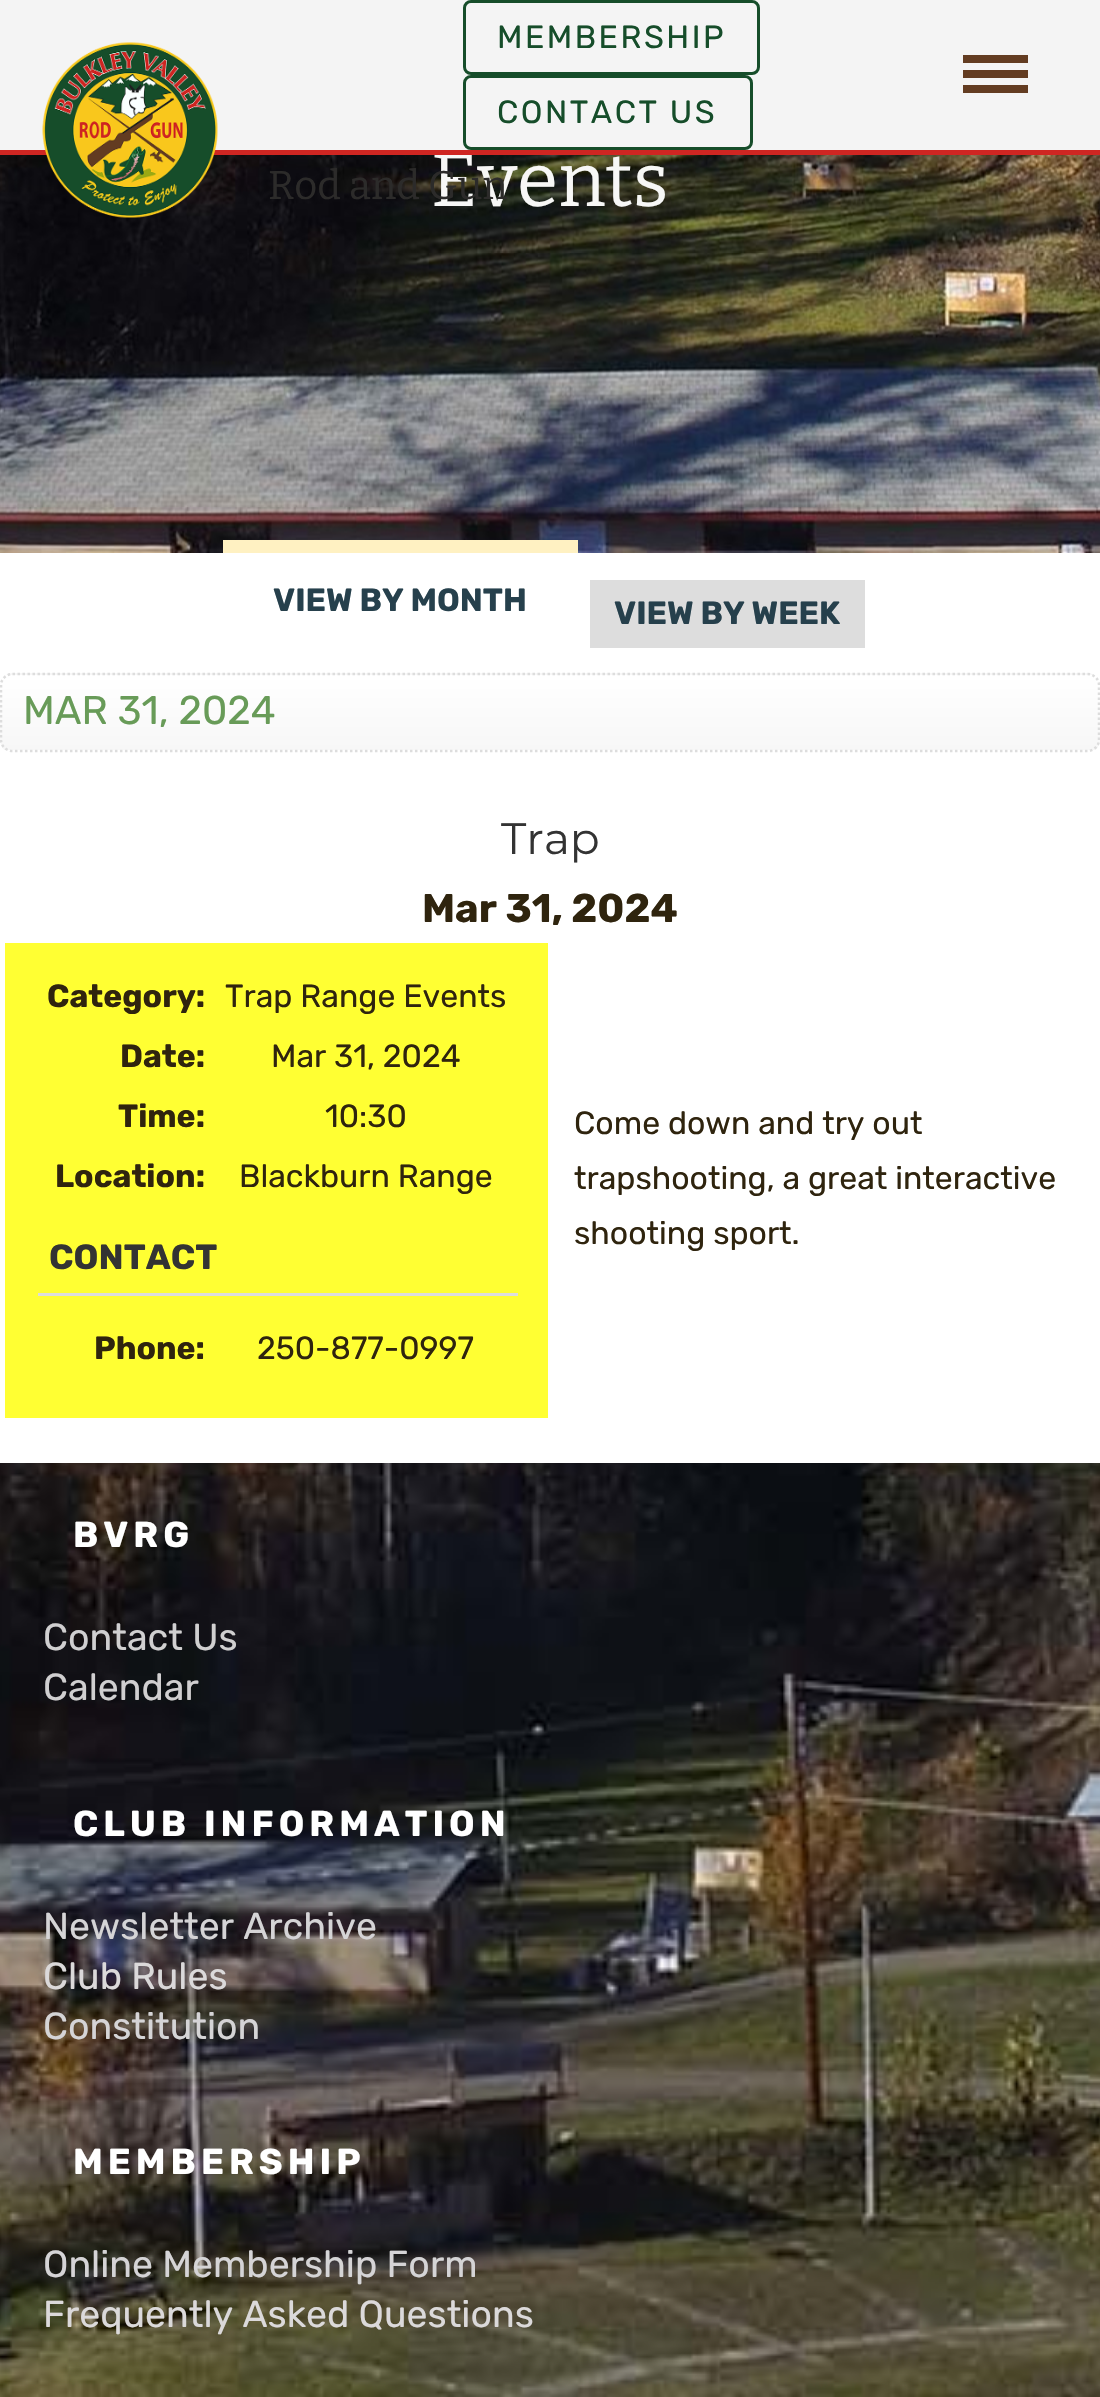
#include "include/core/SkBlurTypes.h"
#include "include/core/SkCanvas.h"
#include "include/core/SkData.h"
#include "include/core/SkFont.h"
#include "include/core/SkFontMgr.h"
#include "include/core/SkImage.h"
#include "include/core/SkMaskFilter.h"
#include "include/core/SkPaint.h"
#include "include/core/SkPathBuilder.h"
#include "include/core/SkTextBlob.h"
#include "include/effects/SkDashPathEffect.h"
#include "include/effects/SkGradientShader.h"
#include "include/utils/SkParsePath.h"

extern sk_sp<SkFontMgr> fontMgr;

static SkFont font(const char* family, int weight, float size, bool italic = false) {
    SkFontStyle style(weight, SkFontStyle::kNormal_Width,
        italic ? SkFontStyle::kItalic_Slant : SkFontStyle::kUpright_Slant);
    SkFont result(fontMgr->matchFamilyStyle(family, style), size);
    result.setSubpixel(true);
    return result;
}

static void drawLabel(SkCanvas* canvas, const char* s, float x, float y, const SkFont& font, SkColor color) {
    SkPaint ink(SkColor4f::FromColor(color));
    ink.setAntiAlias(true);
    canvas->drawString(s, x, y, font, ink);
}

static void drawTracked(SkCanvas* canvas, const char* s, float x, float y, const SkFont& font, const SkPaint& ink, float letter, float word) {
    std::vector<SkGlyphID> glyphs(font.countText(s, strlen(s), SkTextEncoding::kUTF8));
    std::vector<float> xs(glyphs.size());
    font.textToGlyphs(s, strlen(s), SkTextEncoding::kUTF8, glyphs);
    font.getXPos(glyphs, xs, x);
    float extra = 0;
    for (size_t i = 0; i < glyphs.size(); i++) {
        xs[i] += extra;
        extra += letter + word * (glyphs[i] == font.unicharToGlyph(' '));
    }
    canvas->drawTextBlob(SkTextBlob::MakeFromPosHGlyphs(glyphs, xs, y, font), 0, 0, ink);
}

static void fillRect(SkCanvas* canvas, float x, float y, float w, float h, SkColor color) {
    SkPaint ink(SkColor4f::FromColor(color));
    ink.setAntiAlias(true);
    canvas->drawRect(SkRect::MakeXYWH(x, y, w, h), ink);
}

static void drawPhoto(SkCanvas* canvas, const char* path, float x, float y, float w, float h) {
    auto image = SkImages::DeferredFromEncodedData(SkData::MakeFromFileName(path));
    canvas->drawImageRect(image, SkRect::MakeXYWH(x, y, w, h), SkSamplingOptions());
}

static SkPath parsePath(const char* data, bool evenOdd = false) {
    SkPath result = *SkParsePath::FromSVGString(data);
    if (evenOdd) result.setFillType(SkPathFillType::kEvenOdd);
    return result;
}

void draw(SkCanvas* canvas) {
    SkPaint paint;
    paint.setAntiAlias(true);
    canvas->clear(0xFFFFFFFF);
    drawPhoto(canvas, "assets/img2.png", 0, 155, 1100, 398);
    paint.setColor(0x33000000);
    paint.setMaskFilter(SkMaskFilter::MakeBlur(kNormal_SkBlurStyle, 25));
    canvas->drawRect(SkRect::MakeXYWH(0, 8, 1100, 155), paint);
    paint.setMaskFilter(nullptr);
    fillRect(canvas, 0, 0, 1100, 150, 0xFFF4F4F4);
    SkFont font1 = font("Bitter", 400, 75);
    drawLabel(canvas, "Events", 431, 206, font1, 0xFFF7F7F6);
    fillRect(canvas, 0, 150, 1100, 5, 0xFFCF2622);
    drawPhoto(canvas, "assets/img1.png", 42, 42, 176, 176);
    paint.setStroke(true);
    paint.setStrokeWidth(3);
    paint.setColor(0xFF164D2A);
    canvas->drawRoundRect(SkRect::MakeXYWH(464.5f, 1.5f, 294, 72), 6.5f, 6.5f, paint);
    SkFont font2 = font("Rubik", 400, 32);
    paint.setStroke(false);
    drawTracked(canvas, "MEMBERSHIP", 497, 48, font2, paint, 2.5f, 0);
    paint.setStroke(true);
    canvas->drawRoundRect(SkRect::MakeXYWH(464.5f, 76.5f, 287, 72), 6.5f, 6.5f, paint);
    paint.setStroke(false);
    drawTracked(canvas, "CONTACT US", 497, 123, font2, paint, 2.5f, 0);
    fillRect(canvas, 963, 70, 65, 8, 0xFF633C21);
    fillRect(canvas, 963, 55, 65, 8, 0xFF633C21);
    fillRect(canvas, 963, 85, 65, 8, 0xFF633C21);
    SkFont font3 = font("Bitter", 400, 40);
    drawLabel(canvas, "Rod and Gun", 268, 199, font3, 0xFF2C2B2A);
    fillRect(canvas, 223, 540, 355, 13, 0xFFFFF1C2);
    SkFont font4 = font("Rubik", 700, 32);
    drawLabel(canvas, "VIEW BY MONTH", 273, 611, font4, 0xFF26404C);
    fillRect(canvas, 590, 580, 275, 68, 0xFFDDDDDD);
    drawLabel(canvas, "VIEW BY WEEK", 614, 624, font4, 0xFF26404C);
    canvas->save();
    canvas->clipPath(parsePath("M13 673H1087C1094 673 1100 679 1100 686V740C1100 747 1094 753 1087 753H13C6 753 0 747 0 740V686C0 679 6 673 13 673Z"), true);
    {
        const SkColor colors[] = {0xFFFFFFFF, 0xFFF7F7F7};
        const float stops[] = {0, 1};
        const SkPoint ends[] = {{550, 600}, {550, 675}};
        paint.setShader(SkGradientShader::MakeLinear(ends, colors, stops, 2, SkTileMode::kClamp));
        paint.setAlpha(255);
    }
    canvas->drawRect(SkRect::MakeXYWH(0, 673, 1100, 2), paint);
    {
        const SkColor colors[] = {0xFFFFFFFF, 0xFFF7F7F7};
        const float stops[] = {0, 1};
        const SkPoint ends[] = {{550, 675}, {550, 750}};
        paint.setShader(SkGradientShader::MakeLinear(ends, colors, stops, 2, SkTileMode::kClamp));
        paint.setAlpha(255);
    }
    canvas->drawRect(SkRect::MakeXYWH(0, 675, 1100, 75), paint);
    canvas->restore();
    paint.setStroke(true);
    paint.setStrokeWidth(2.5f);
    paint.setShader(nullptr);
    paint.setColor(0xFFDDDDDD);
    paint.setPathEffect(SkDashPathEffect::Make({{2.5f, 2.5f}}, 0));
    canvas->drawPath(parsePath("M12.5 674H1087.5C1093.5 674 1099 679 1099 685V740C1099 746 1093.5 751 1087.5 751H12.5C6.5 751 1 746 1 740V685C1 679 6.5 674 12.5 674Z"), paint);
    paint.setPathEffect(nullptr);
    SkFont font5 = font("Rubik", 400, 40);
    drawLabel(canvas, "MAR 31, 2024", 23, 724, font5, 0xFF689B58);
    SkFont font6 = font("Montserrat", 400, 44);
    drawLabel(canvas, "Trap", 501, 854, font6, 0xFF333333);
    SkFont font7 = font("Rubik", 700, 40);
    drawLabel(canvas, "Mar 31, 2024", 422, 922, font7, 0xFF2F240E);
    fillRect(canvas, 5, 943, 543, 475, 0xFFFFFF33);
    drawLabel(canvas, "Category:", 47, 1007, font4, 0xFF2F240E);
    drawLabel(canvas, "Trap Range Events", 225, 1007, font2, 0xFF2F240E);
    drawLabel(canvas, "Date:", 120, 1067, font4, 0xFF2F240E);
    drawLabel(canvas, "Mar 31, 2024", 271, 1067, font2, 0xFF2F240E);
    drawLabel(canvas, "Time:", 118, 1127, font4, 0xFF2F240E);
    drawLabel(canvas, "10:30", 325, 1127, font2, 0xFF2F240E);
    drawLabel(canvas, "Location:", 55, 1187, font4, 0xFF2F240E);
    drawLabel(canvas, "Blackburn Range", 239, 1187, font2, 0xFF2F240E);
    fillRect(canvas, 38, 1293, 480, 3, 0xFFDDDDDD);
    SkFont font8 = font("Rubik", 700, 35);
    drawLabel(canvas, "CONTACT", 49, 1269, font8, 0xFF333333);
    drawLabel(canvas, "Phone:", 94, 1359, font4, 0xFF2F240E);
    drawLabel(canvas, "250-877-0997", 257, 1359, font2, 0xFF2F240E);
    drawLabel(canvas, "Come down and try out", 574, 1134, font2, 0xFF2F240E);
    drawLabel(canvas, "trapshooting, a great interactive", 574, 1189, font2, 0xFF2F240E);
    drawLabel(canvas, "shooting sport.", 574, 1244, font2, 0xFF2F240E);
    drawPhoto(canvas, "assets/img3.png", 0, 1463, 1100, 934);
    SkFont font9 = font("Rubik", 700, 36);
    paint.setStroke(false);
    paint.setColor(0xFFFFFFFF);
    drawTracked(canvas, "BVRG", 73, 1547, font9, paint, 5, 0);
    SkFont font10 = font("Rubik", 400, 37.5f);
    drawLabel(canvas, "Contact Us", 43, 1650, font10, 0xFFD0CFD0);
    drawLabel(canvas, "Calendar", 43, 1700, font10, 0xFFD0CFD0);
    drawTracked(canvas, "CLUB INFORMATION", 73, 1836, font9, paint, 5, 0);
    drawLabel(canvas, "Newsletter Archive", 43, 1939, font10, 0xFFD5D4D6);
    drawLabel(canvas, "Club Rules", 43, 1989, font10, 0xFFDBD9DA);
    drawLabel(canvas, "Constitution", 43, 2039, font10, 0xFFD5D4D6);
    drawTracked(canvas, "MEMBERSHIP", 73, 2174, font9, paint, 5, 0);
    drawLabel(canvas, "Online Membership Form", 43, 2277, font10, 0xFFD5D4D6);
    drawLabel(canvas, "Frequently Asked Questions", 43, 2327, font10, 0xFFDBD9DA);
}
